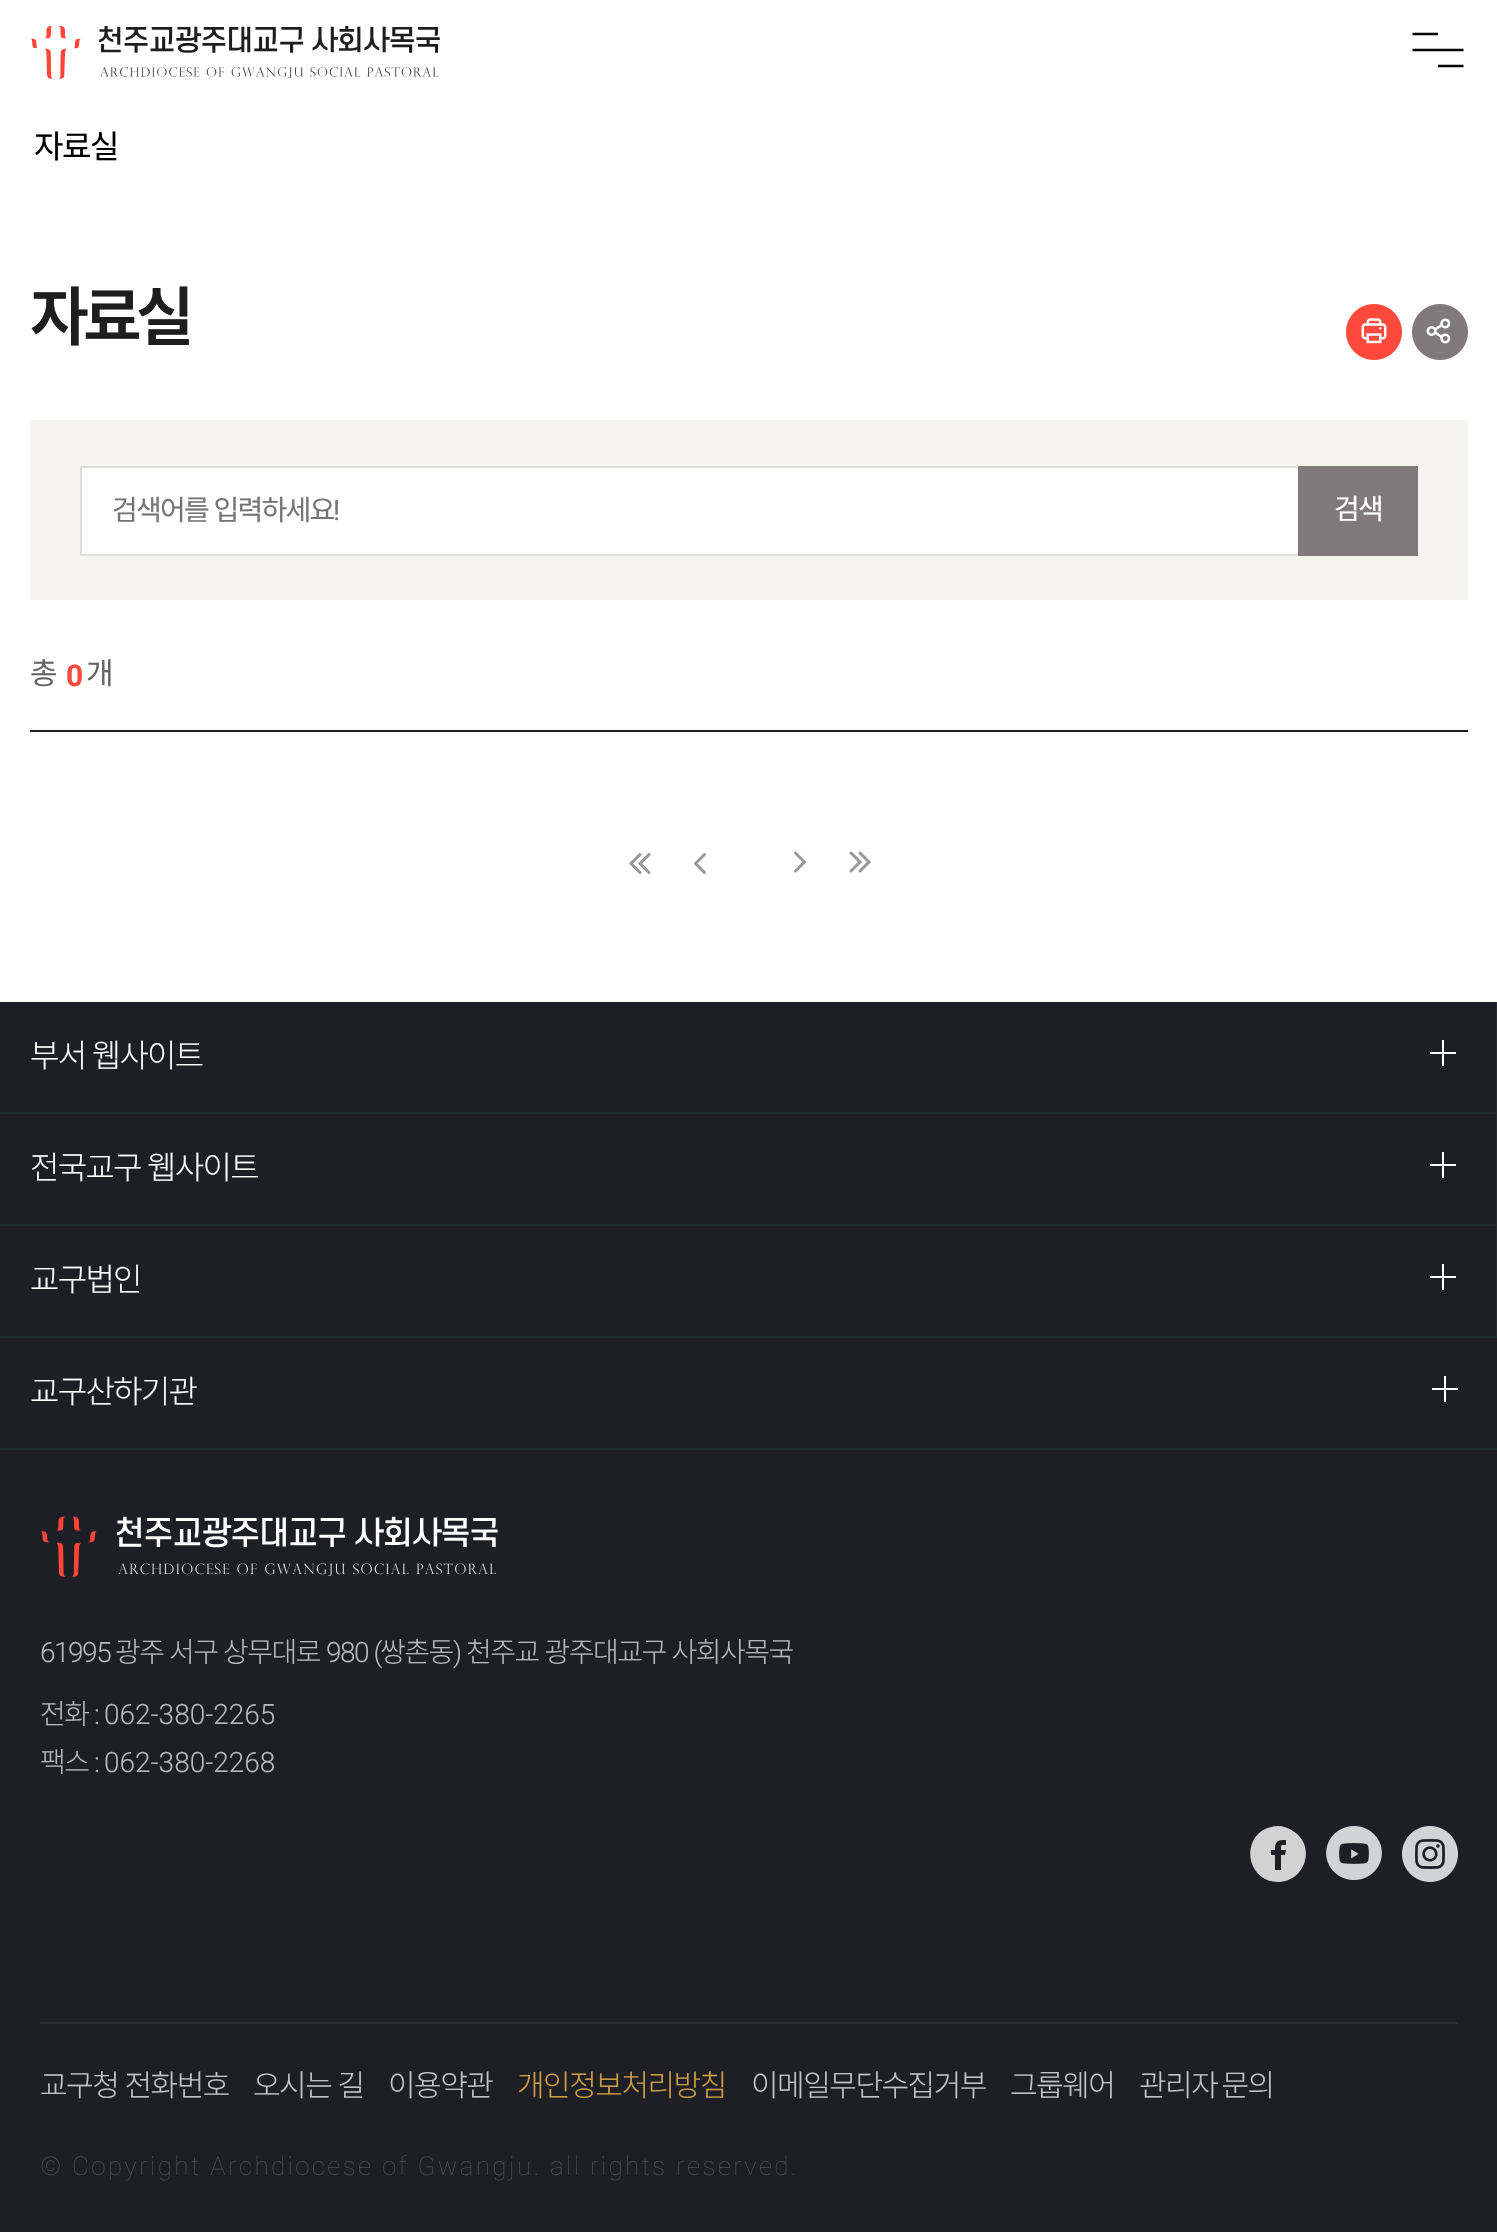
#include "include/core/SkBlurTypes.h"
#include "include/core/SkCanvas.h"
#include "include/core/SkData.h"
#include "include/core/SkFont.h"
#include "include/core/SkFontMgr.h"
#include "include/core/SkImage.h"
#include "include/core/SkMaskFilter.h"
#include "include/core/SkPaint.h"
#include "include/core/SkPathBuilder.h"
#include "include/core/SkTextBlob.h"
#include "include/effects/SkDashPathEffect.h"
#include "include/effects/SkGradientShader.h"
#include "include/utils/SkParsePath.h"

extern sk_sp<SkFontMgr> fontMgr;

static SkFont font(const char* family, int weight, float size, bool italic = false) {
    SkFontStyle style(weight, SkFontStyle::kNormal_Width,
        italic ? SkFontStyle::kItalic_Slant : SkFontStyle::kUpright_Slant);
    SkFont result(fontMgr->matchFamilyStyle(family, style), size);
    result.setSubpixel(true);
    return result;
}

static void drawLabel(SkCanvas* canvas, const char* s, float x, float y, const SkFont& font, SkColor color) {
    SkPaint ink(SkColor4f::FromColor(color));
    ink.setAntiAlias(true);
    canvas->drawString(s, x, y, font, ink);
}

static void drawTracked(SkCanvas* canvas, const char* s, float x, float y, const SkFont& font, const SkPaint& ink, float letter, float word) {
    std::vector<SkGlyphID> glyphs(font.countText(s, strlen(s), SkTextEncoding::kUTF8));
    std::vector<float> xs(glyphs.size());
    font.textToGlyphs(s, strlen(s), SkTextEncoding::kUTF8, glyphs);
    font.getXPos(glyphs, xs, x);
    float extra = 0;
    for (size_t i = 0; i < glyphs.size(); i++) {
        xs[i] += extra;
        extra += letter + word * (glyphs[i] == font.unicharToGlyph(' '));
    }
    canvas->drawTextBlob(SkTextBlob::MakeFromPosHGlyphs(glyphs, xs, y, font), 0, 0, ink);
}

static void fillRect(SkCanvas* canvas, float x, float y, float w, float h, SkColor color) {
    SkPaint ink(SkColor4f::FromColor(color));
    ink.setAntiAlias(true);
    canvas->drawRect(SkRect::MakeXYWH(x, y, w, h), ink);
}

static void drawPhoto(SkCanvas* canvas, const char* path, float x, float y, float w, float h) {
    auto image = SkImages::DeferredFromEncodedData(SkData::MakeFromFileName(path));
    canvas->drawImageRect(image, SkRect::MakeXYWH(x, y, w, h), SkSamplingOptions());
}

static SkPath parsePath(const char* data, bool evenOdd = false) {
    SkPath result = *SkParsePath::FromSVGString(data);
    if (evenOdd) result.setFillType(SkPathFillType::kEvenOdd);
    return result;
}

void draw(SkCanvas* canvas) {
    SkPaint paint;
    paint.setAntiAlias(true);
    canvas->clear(0xFFFFFFFF);
    drawPhoto(canvas, "assets/img1.png", 30, 26, 410, 53);
    paint.setStroke(true);
    paint.setStrokeWidth(2.7f);
    paint.setColor(0xFF000000);
    canvas->drawPath(parsePath("M1463.5 50H1412.5M1438 34H1412.5M1463.5 66H1438"), paint);
    SkFont font1 = font("Noto Sans KR", 400, 32);
    paint.setStroke(false);
    drawTracked(canvas, "자료실", 34, 158, font1, paint, -1.5f, 0);
    SkFont font2 = font("Noto Sans KR", 600, 64);
    paint.setColor(0xFF1E1E1E);
    drawTracked(canvas, "자료실", 30, 340, font2, paint, -6, 0);
    drawPhoto(canvas, "assets/img2.png", 1346, 304, 56, 56);
    drawPhoto(canvas, "assets/img3.png", 1412, 304, 56, 56);
    fillRect(canvas, 30, 420, 1438, 180, 0xFFF6F4F1);
    fillRect(canvas, 82, 468, 1216, 86, 0xFFFFFFFF);
    fillRect(canvas, 80, 466, 1218, 2, 0xFFDDDDDD);
    fillRect(canvas, 80, 554, 1218, 2, 0xFFDDDDDD);
    fillRect(canvas, 80, 466, 2, 90, 0xFFDDDDDD);
    SkFont font3 = font("Noto Sans KR", 400, 28);
    paint.setColor(0xFF757575);
    drawTracked(canvas, "검색어를 입력하세요", 112, 520, font3, paint, -1.75f, 1);
    SkFont font4 = font("Roboto", 400, 28);
    drawTracked(canvas, "!", 333, 520, font4, paint, -1.75f, 0);
    fillRect(canvas, 1298, 466, 120, 90, 0xFF807A7D);
    paint.setColor(0xFFFFFFFF);
    drawTracked(canvas, "검색", 1334, 519, font3, paint, -1.75f, 0);
    SkFont font5 = font("Noto Sans KR", 400, 30);
    paint.setColor(0xFF666666);
    drawTracked(canvas, "총", 30, 684, font5, paint, -2, 0);
    SkFont font6 = font("Roboto", 700, 30);
    paint.setColor(0xFFFE493C);
    drawTracked(canvas, "0", 66, 686, font6, paint, -2, 0);
    paint.setColor(0xFF666666);
    drawTracked(canvas, "개", 86, 684, font5, paint, -2, 0);
    fillRect(canvas, 30, 730, 1438, 2, 0xFF1E1F25);
    drawPhoto(canvas, "assets/img4.png", 629, 853, 22, 21);
    paint.setStroke(true);
    paint.setStrokeWidth(3);
    paint.setStrokeCap(SkPaint::kRound_Cap);
    paint.setColor(0xFF999999);
    canvas->drawPath(parsePath("M704.5 854.5L695.5 863.5M704.5 872.5L695.5 863.5"), paint);
    canvas->drawPath(parsePath("M795.5 853L804.5 862M795.5 871L804.5 862"), paint);
    drawPhoto(canvas, "assets/img5.png", 849, 851, 22, 22);
    fillRect(canvas, 0, 1002, 1497, 1230, 0xFF1E1F25);
    fillRect(canvas, 1496, 1002, 1, 336, 0xFF242C31);
    fillRect(canvas, 0, 1112, 1497, 2, 0xFF242C31);
    SkFont font7 = font("Noto Sans KR", 300, 32);
    paint.setStroke(false);
    paint.setColor(0xFFFFFFFF);
    drawTracked(canvas, "부서 웹사이트", 30, 1067, font7, paint, -1.75f, 1);
    fillRect(canvas, 1430, 1052, 26, 2, 0xFFFFFFFF);
    fillRect(canvas, 1442, 1040, 2, 26, 0xFFFFFFFF);
    fillRect(canvas, 0, 1224, 1497, 2, 0xFF242C31);
    drawTracked(canvas, "전국교구 웹사이트", 30, 1179, font7, paint, -1.75f, 1);
    fillRect(canvas, 1430, 1164, 26, 2, 0xFFFFFFFF);
    fillRect(canvas, 1442, 1152, 2, 26, 0xFFFFFFFF);
    fillRect(canvas, 0, 1336, 1497, 2, 0xFF242C31);
    drawTracked(canvas, "교구법인", 30, 1291, font7, paint, -1.75f, 0);
    fillRect(canvas, 1430, 1276, 26, 2, 0xFFFFFFFF);
    fillRect(canvas, 1442, 1264, 2, 26, 0xFFFFFFFF);
    fillRect(canvas, 0, 1448, 1497, 2, 0xFF242C31);
    drawTracked(canvas, "교구산하기관", 30, 1403, font7, paint, -1.75f, 0);
    fillRect(canvas, 1432, 1388, 26, 2, 0xFFFFFFFF);
    fillRect(canvas, 1444, 1376, 2, 26, 0xFFFFFFFF);
    fillRect(canvas, 40, 2022, 1418, 2, 0xFF2C2C32);
    drawPhoto(canvas, "assets/img6.png", 40, 1516, 458, 61);
    SkFont font8 = font("Roboto", 300, 28);
    paint.setColor(0xFFB6B8BA);
    drawTracked(canvas, "61995", 40, 1662, font8, paint, -1.5f, 0);
    SkFont font9 = font("Noto Sans KR", 300, 28);
    drawTracked(canvas, "광주", 115, 1662, font9, paint, -1.5f, 0);
    drawTracked(canvas, "서구", 169, 1662, font9, paint, -1.5f, 0);
    drawTracked(canvas, "상무대로", 223, 1662, font9, paint, -1.5f, 0);
    drawTracked(canvas, "980 (", 326, 1662, font8, paint, -1.5f, 0);
    drawTracked(canvas, "쌍촌동", 380, 1662, font9, paint, -1.5f, 0);
    drawTracked(canvas, ")", 453, 1662, font8, paint, -1.5f, 0);
    drawTracked(canvas, "천주교 광주대교구 사회사목국", 466, 1662, font9, paint, -1.5f, 1);
    drawTracked(canvas, "전화", 40, 1724, font9, paint, -1.5f, 0);
    drawTracked(canvas, ":", 94, 1724, font8, paint, -1.5f, 0);
    drawLabel(canvas, "062-380-2265", 104, 1724, font8, 0xFFB6B8BA);
    drawTracked(canvas, "팩스", 40, 1772, font9, paint, -1.5f, 0);
    drawTracked(canvas, ":", 94, 1772, font8, paint, -1.5f, 0);
    drawLabel(canvas, "062-380-2268", 104, 1772, font8, 0xFFB6B8BA);
    paint.setColor(0xFFD2D2D3);
    canvas->drawPath(parsePath("M1278 1882C1250 1882 1240 1845 1263 1830C1267 1828 1273 1826 1278 1826C1283 1826 1289 1828 1293 1831C1317 1846 1305 1882 1278 1882ZM1271 1850V1855H1275V1870H1281V1855H1285L1286 1850H1281C1281 1845 1280 1845 1286 1845V1840C1277 1840 1275 1841 1275 1850Z"), paint);
    drawPhoto(canvas, "assets/img7.png", 1326, 1826, 56, 54);
    drawPhoto(canvas, "assets/img8.png", 1402, 1826, 56, 56);
    SkFont font10 = font("Noto Sans KR", 300, 30);
    paint.setColor(0xFFC1C4C6);
    drawTracked(canvas, "교구청 전화번호", 40, 2096, font10, paint, -1.5f, 1);
    drawTracked(canvas, "오시는 길", 253, 2096, font10, paint, -1.5f, 1);
    drawTracked(canvas, "이용약관", 388, 2096, font10, paint, -1.5f, 0);
    paint.setColor(0xFFCE9D41);
    drawTracked(canvas, "개인정보처리방침", 517, 2096, font10, paint, -1.5f, 0);
    paint.setColor(0xFFC1C4C6);
    drawTracked(canvas, "이메일무단수집거부", 751, 2096, font10, paint, -1.5f, 0);
    drawTracked(canvas, "그룹웨어", 1010, 2096, font10, paint, -1.5f, 0);
    drawTracked(canvas, "관리자 문의", 1139, 2096, font10, paint, -1.5f, -1);
    SkFont font11 = font("Roboto", 100, 26);
    paint.setColor(0xFF4B4C51);
    drawTracked(canvas, "© Copyright Archdiocese of Gwangju. all rights reserved.", 40, 2175, font11, paint, 2.32f, 0);
}
